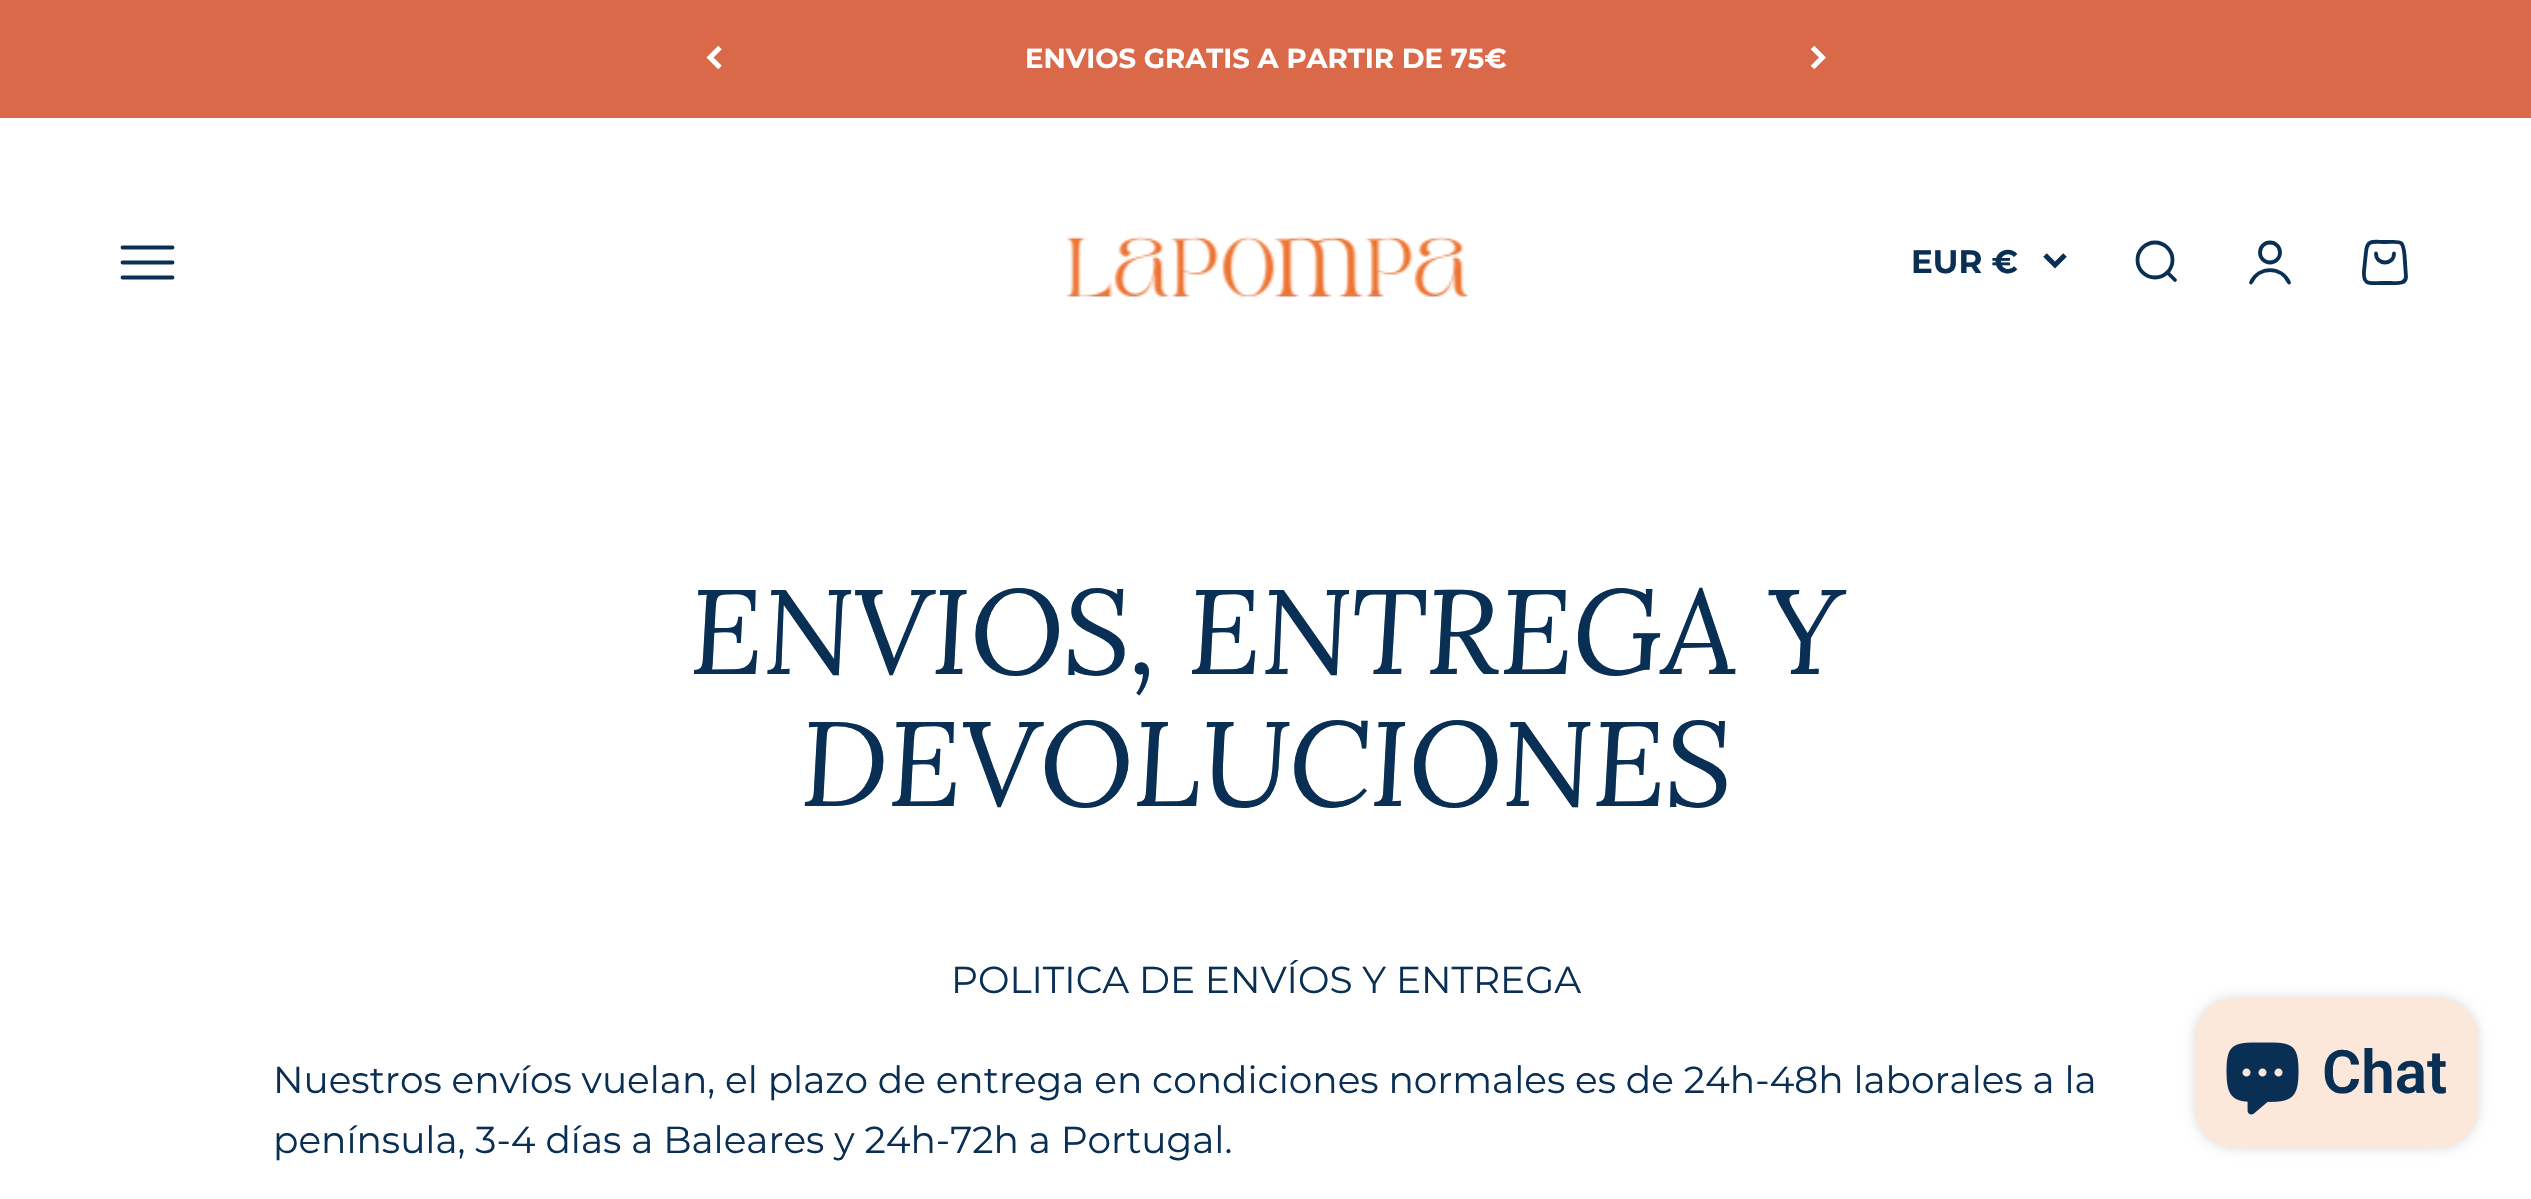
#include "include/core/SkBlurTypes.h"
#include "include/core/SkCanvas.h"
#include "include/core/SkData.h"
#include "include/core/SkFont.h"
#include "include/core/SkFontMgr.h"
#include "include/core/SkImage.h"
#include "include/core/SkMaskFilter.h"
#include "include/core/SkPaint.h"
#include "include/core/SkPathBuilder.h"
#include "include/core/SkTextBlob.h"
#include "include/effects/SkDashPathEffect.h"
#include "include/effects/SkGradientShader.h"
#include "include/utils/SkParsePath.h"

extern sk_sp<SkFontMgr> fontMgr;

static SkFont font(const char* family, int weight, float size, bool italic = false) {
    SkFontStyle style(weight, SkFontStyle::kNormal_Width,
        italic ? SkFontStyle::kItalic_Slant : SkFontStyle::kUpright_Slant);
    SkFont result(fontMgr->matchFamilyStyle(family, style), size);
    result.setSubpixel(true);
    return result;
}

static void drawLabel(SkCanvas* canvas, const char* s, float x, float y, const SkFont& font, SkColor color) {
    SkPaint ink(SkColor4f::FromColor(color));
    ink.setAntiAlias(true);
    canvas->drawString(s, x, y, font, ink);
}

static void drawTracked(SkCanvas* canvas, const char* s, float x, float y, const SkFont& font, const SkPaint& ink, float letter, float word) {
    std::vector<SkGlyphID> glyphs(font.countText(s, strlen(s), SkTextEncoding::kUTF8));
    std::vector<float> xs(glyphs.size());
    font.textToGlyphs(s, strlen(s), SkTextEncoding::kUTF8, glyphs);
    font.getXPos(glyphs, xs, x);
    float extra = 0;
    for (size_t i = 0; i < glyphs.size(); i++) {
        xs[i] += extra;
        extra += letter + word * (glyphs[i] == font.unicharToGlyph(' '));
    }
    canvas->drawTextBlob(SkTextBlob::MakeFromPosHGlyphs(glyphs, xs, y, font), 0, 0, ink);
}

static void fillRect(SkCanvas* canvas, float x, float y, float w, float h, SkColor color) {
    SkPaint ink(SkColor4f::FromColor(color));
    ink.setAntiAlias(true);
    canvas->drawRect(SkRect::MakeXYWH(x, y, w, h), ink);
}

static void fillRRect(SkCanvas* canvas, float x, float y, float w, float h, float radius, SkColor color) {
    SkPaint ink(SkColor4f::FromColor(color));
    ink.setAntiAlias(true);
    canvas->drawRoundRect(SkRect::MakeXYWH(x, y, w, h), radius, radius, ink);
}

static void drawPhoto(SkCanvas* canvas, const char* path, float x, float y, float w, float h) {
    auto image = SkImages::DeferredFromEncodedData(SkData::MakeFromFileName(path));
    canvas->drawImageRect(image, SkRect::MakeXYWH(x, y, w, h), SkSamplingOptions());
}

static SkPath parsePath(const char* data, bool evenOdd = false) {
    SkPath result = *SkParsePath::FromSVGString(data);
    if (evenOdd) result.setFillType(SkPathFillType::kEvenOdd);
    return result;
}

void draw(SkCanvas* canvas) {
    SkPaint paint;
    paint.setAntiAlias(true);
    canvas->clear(0xFFFFFFFF);
    fillRect(canvas, 0, 0, 2531, 118, 0xFFDA6949);
    paint.setStroke(true);
    paint.setStrokeWidth(5);
    paint.setColor(0xFFFFFFFF);
    canvas->drawPath(parsePath("M720 47.5L710 57.5L720 67.5"), paint);
    SkFont font1 = font("Montserrat", 700, 27.5f);
    drawLabel(canvas, "ENVIOS GRATIS A PARTIR DE 75€", 1025, 68, font1, 0xFFFFFFFF);
    canvas->drawPath(parsePath("M1812.5 67.5L1822.5 57.5L1812.5 47.5"), paint);
    paint.setStrokeWidth(3.8f);
    paint.setStrokeCap(SkPaint::kRound_Cap);
    paint.setColor(0xFF092F54);
    canvas->drawPath(parsePath("M122.5 247.5H172.5M122.5 262.5H172.5M122.5 277.5H172.5"), paint);
    drawPhoto(canvas, "assets/img1.png", 1066, 236, 402, 61);
    SkFont font2 = font("Montserrat", 700, 32.5f);
    drawLabel(canvas, "EUR €", 1911, 273, font2, 0xFF092F54);
    paint.setStrokeWidth(5);
    paint.setStrokeCap(SkPaint::kButt_Cap);
    canvas->drawPath(parsePath("M2045 255L2055 265L2065 255"), paint);
    paint.setStrokeWidth(3.8f);
    canvas->drawCircle(2155, 260, 17.5f, paint);
    paint.setStrokeCap(SkPaint::kRound_Cap);
    paint.setStrokeJoin(SkPaint::kRound_Join);
    canvas->drawPath(parsePath("M2167.5 272.5L2175 280"), paint);
    paint.setStrokeCap(SkPaint::kButt_Cap);
    paint.setStrokeJoin(SkPaint::kMiter_Join);
    canvas->drawCircle(2270, 252.5f, 10, paint);
    paint.setStrokeCap(SkPaint::kRound_Cap);
    canvas->drawPath(parsePath("M2251 282.5C2259 266 2281 266 2289 282.5"), paint);
    paint.setStrokeJoin(SkPaint::kRound_Join);
    canvas->drawPath(parsePath("M2394 253.5C2394 265.5 2376 265.5 2376 253.5M2366 252L2364 271C2363 285.5 2369.5 283 2381.5 283H2391.5C2396.5 283 2405.5 284.5 2406 277L2404.5 255C2403 239 2400.5 242 2385 242C2373.5 242 2367 239 2366 252Z"), paint);
    SkFont font3 = font("Lora", 400, 120, true);
    paint.setStroke(false);
    drawTracked(canvas, "ENVIOS, ENTREGA Y", 689, 674, font3, paint, -1.25f, 0);
    drawTracked(canvas, "DEVOLUCIONES", 800, 806, font3, paint, -1.25f, 0);
    SkFont font4 = font("Montserrat", 100, 37.5f);
    drawLabel(canvas, "POLITICA DE ENVÍOS Y ENTREGA", 951, 993, font4, 0xFF092F54);
    drawLabel(canvas, "Nuestros envíos vuelan, el plazo de entrega en condiciones normales es de 24h-48h laborales a la", 273, 1093, font4, 0xFF092F54);
    drawLabel(canvas, "península, 3-4 días a Baleares y 24h-72h a Portugal.", 273, 1153, font4, 0xFF092F54);
    paint.setColor(0x26000000);
    paint.setMaskFilter(SkMaskFilter::MakeBlur(kNormal_SkBlurStyle, 6));
    canvas->drawRoundRect(SkRect::MakeXYWH(2195, 998, 283, 150), 40, 40, paint);
    paint.setMaskFilter(nullptr);
    fillRRect(canvas, 2195, 998, 283, 150, 40, 0xFFFBE8DA);
    drawPhoto(canvas, "assets/img2.png", 2226, 1042, 73, 73);
    SkFont font5 = font("Roboto", 600, 60);
    drawLabel(canvas, "Chat", 2322, 1093, font5, 0xFF092F54);
}
